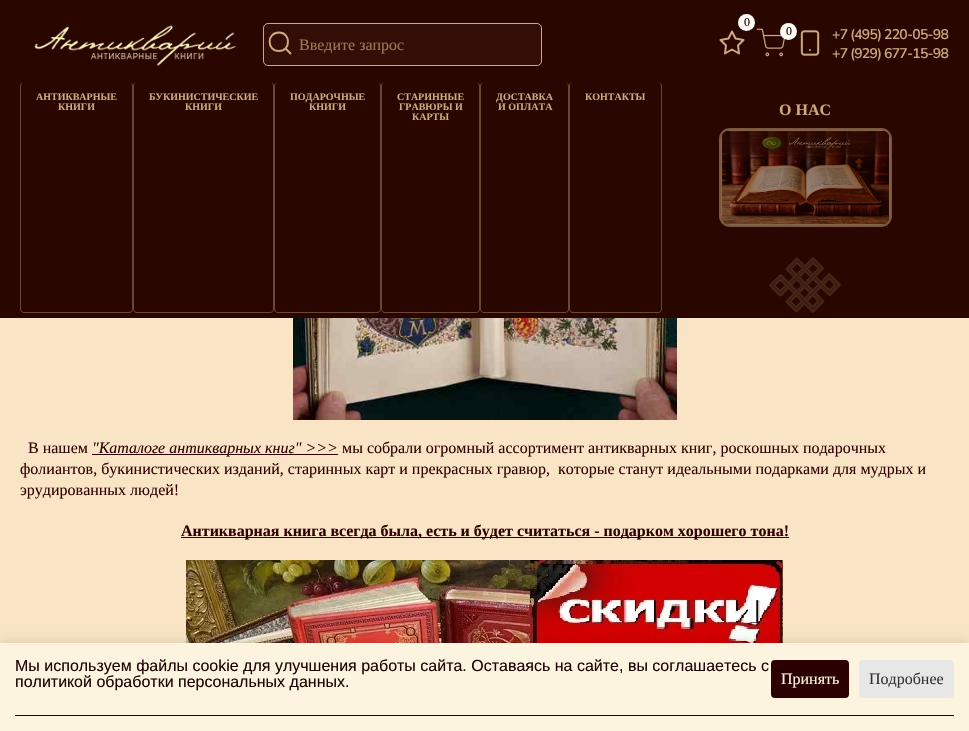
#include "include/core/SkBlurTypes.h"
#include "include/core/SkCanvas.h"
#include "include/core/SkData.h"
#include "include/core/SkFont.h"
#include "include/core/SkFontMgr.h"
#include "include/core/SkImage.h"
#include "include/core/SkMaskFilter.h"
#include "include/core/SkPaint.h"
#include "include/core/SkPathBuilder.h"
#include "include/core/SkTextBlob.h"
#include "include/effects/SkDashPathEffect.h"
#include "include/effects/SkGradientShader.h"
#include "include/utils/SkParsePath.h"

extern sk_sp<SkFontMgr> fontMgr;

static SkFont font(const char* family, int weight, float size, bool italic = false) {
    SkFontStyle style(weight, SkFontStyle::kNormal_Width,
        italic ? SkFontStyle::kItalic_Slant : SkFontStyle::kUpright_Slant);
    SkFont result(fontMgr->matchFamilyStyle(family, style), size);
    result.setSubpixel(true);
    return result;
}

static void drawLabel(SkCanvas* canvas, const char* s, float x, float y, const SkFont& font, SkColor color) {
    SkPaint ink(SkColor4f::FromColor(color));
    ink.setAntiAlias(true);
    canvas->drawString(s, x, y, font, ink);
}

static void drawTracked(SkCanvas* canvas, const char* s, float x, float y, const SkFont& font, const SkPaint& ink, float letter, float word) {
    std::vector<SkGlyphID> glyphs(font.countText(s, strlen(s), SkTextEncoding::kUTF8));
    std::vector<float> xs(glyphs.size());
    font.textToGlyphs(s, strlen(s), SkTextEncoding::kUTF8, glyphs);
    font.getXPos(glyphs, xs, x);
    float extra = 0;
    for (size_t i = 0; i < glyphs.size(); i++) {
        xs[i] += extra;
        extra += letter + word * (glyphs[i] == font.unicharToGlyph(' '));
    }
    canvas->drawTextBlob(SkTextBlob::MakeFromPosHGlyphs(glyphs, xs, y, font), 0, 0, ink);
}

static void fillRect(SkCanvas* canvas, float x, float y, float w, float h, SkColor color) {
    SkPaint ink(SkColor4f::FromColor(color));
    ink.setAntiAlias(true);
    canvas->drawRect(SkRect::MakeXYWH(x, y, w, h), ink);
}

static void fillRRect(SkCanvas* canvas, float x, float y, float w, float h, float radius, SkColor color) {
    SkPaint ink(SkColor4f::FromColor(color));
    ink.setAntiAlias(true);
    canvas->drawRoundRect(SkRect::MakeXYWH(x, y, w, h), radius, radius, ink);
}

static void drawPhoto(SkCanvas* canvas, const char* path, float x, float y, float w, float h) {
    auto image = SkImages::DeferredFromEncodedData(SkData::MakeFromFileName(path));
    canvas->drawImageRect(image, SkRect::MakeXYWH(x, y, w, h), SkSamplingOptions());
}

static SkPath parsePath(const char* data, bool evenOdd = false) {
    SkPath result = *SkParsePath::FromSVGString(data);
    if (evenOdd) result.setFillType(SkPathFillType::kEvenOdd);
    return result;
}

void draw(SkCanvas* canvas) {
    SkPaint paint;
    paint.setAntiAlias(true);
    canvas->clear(0xFFF9E5C5);
    fillRect(canvas, 0, 0, 969, 318, 0xFF2A0601);
    paint.setStroke(true);
    paint.setStrokeWidth(2);
    paint.setStrokeCap(SkPaint::kRound_Cap);
    paint.setStrokeJoin(SkPaint::kRound_Join);
    paint.setColor(0xFFCEA97C);
    canvas->drawPath(parsePath("M732 31.5L735.5 38.5L743.5 40L738 45.5L739 53.5L732 49.5L725 53.5L726 45.5L720.5 40L728.5 38.5Z"), paint);
    paint.setStroke(false);
    paint.setColor(0xFFFEFCF5);
    canvas->drawCircle(746.5f, 22.5f, 8.5f, paint);
    SkFont font1 = font("Liberation Serif", 400, 12);
    paint.setColor(0xFF1C0101);
    drawTracked(canvas, "0", 744, 26, font1, paint, -1, 0);
    drawPhoto(canvas, "assets/img1.png", 34, 25, 202, 41);
    paint.setColor(0xFF320E07);
    canvas->drawRoundRect(SkRect::MakeXYWH(263.5f, 23.5f, 278, 42), 4.5f, 4.5f, paint);
    paint.setStroke(true);
    paint.setStrokeWidth(1);
    paint.setStrokeCap(SkPaint::kButt_Cap);
    paint.setStrokeJoin(SkPaint::kMiter_Join);
    paint.setColor(0xFFCEA97C);
    canvas->drawRoundRect(SkRect::MakeXYWH(263.5f, 23.5f, 278, 42), 4.5f, 4.5f, paint);
    paint.setStrokeWidth(2);
    paint.setStrokeCap(SkPaint::kRound_Cap);
    paint.setStrokeJoin(SkPaint::kRound_Join);
    canvas->drawPath(parsePath("M279 51C291 51 291 32.5 279 32.5C266.5 32.5 266.5 51 279 51ZM290.5 53.5L285.5 48.5"), paint);
    SkFont font2 = font("Liberation Serif", 400, 16);
    drawLabel(canvas, "Введите запрос", 299, 50, font2, 0xFF9E7A58);
    drawPhoto(canvas, "assets/img2.png", 756, 28, 29, 29);
    paint.setStroke(false);
    paint.setColor(0xFFFEFCF5);
    canvas->drawCircle(788.5f, 31.5f, 8.5f, paint);
    paint.setColor(0xFF1C0101);
    drawTracked(canvas, "0", 786, 35, font1, paint, -1, 0);
    drawPhoto(canvas, "assets/img3.png", 800, 30, 20, 26);
    SkFont font3 = font("Nunito Sans", 600, 14);
    paint.setColor(0xFFCEA97C);
    drawTracked(canvas, "+7 (495) 220-05-98", 832, 39, font3, paint, -0.75f, 0);
    drawTracked(canvas, "+7 (929) 677-15-98", 832, 58, font3, paint, -0.75f, 0);
    paint.setColor(0xFF6C4732);
    canvas->drawPath(parsePath("M24 82H129C131 82 133 84 133 86V309C133 311 131 313 129 313H24C22 313 20 311 20 309V86C20 84 22 82 24 82ZM24 82H129C131 82 132 84 132 86V309C132 311 131 312 129 312H24C22 312 21 311 21 309V86C21 84 22 82 24 82Z", true), paint);
    SkFont font4 = font("Liberation Serif", 700, 10);
    drawLabel(canvas, "АНТИКВАРНЫЕ", 36, 100, font4, 0xFFCEA97C);
    drawLabel(canvas, "КНИГИ", 58, 110, font4, 0xFFCEA97C);
    canvas->drawPath(parsePath("M137 82H270C272 82 274 84 274 86V309C274 311 272 313 270 313H137C135 313 133 311 133 309V86C133 84 135 82 137 82ZM137 82H270C272 82 273 84 273 86V309C273 311 272 312 270 312H137C135 312 134 311 134 309V86C134 84 135 82 137 82Z", true), paint);
    drawLabel(canvas, "БУКИНИСТИЧЕСКИЕ", 149, 100, font4, 0xFFCEA97C);
    drawLabel(canvas, "КНИГИ", 185, 110, font4, 0xFFCEA97C);
    canvas->drawPath(parsePath("M278 82H377C379 82 381 84 381 86V309C381 311 379 313 377 313H278C276 313 274 311 274 309V86C274 84 276 82 278 82ZM278 82H377C379 82 380 84 380 86V309C380 311 379 312 377 312H278C276 312 275 311 275 309V86C275 84 276 82 278 82Z", true), paint);
    drawLabel(canvas, "ПОДАРОЧНЫЕ", 290, 100, font4, 0xFFCEA97C);
    drawLabel(canvas, "КНИГИ", 309, 110, font4, 0xFFCEA97C);
    canvas->drawPath(parsePath("M385 82H476C478 82 480 84 480 86V309C480 311 478 313 476 313H385C383 313 381 311 381 309V86C381 84 383 82 385 82ZM385 82H476C478 82 479 84 479 86V309C479 311 478 312 476 312H385C383 312 382 311 382 309V86C382 84 383 82 385 82Z", true), paint);
    drawLabel(canvas, "СТАРИННЫЕ", 397, 100, font4, 0xFFCEA97C);
    drawLabel(canvas, "ГРАВЮРЫ И", 399, 110, font4, 0xFFCEA97C);
    drawLabel(canvas, "КАРТЫ", 412, 120, font4, 0xFFCEA97C);
    canvas->drawPath(parsePath("M484 82H565C567 82 569 84 569 86V309C569 311 567 313 565 313H484C482 313 480 311 480 309V86C480 84 482 82 484 82ZM484 82H565C567 82 568 84 568 86V309C568 311 567 312 565 312H484C482 312 481 311 481 309V86C481 84 482 82 484 82Z", true), paint);
    drawLabel(canvas, "ДОСТАВКА", 496, 100, font4, 0xFFCEA97C);
    drawLabel(canvas, "И ОПЛАТА", 498, 110, font4, 0xFFCEA97C);
    canvas->drawPath(parsePath("M573 82H658C660 82 662 84 662 86V309C662 311 660 313 658 313H573C571 313 569 311 569 309V86C569 84 571 82 573 82ZM573 82H658C660 82 661 84 661 86V309C661 311 660 312 658 312H573C571 312 570 311 570 309V86C570 84 571 82 573 82Z", true), paint);
    drawLabel(canvas, "КОНТАКТЫ", 585, 100, font4, 0xFFCEA97C);
    SkFont font5 = font("Liberation Serif", 700, 16);
    drawLabel(canvas, "О НАС", 779, 115, font5, 0xFFCEA97C);
    paint.setStroke(true);
    paint.setStrokeCap(SkPaint::kButt_Cap);
    paint.setStrokeJoin(SkPaint::kMiter_Join);
    paint.setColor(0xFF7C583F);
    canvas->drawRoundRect(SkRect::MakeXYWH(720, 129, 171, 97), 10, 10, paint);
    drawPhoto(canvas, "assets/img4.png", 721, 130, 169, 95);
    drawPhoto(canvas, "assets/img5.png", 769, 257, 72, 56);
    drawPhoto(canvas, "assets/img6.png", 293, 318, 384, 102);
    drawLabel(canvas, "В нашем", 28, 453, font2, 0xFF310101);
    fillRect(canvas, 92, 454, 246, 1, 0xFF310101);
    SkFont font6 = font("Liberation Serif", 400, 16, true);
    drawLabel(canvas, "\"Каталоге антикварных книг\" >>>", 92, 453, font6, 0xFF310101);
    drawLabel(canvas, "мы собрали огромный ассортимент антикварных книг, роскошных подарочных", 342, 453, font2, 0xFF310101);
    drawLabel(canvas, "фолиантов, букинистических изданий, старинных карт и прекрасных гравюр,  которые станут идеальными подарками для мудрых и", 20, 474, font2, 0xFF310101);
    drawLabel(canvas, "эрудированных людей!", 20, 495, font2, 0xFF310101);
    fillRect(canvas, 181, 537, 608, 1, 0xFF310101);
    drawLabel(canvas, "Антикварная книга всегда была, есть и будет считаться - подарком хорошего тона!", 181, 536, font5, 0xFF310101);
    drawPhoto(canvas, "assets/img7.png", 186, 560, 597, 83);
    paint.setStroke(false);
    paint.setColor(0x1A000000);
    paint.setMaskFilter(SkMaskFilter::MakeBlur(kNormal_SkBlurStyle, 5));
    canvas->drawRect(SkRect::MakeXYWH(0, 641, 969, 88), paint);
    paint.setMaskFilter(nullptr);
    fillRect(canvas, 0, 643, 969, 88, 0xFFFDF4E0);
    SkFont font7 = font("Liberation Sans", 400, 16);
    drawLabel(canvas, "Мы используем файлы cookie для улучшения работы сайта. Оставаясь на сайте, вы соглашаетесь с", 15, 671, font7, 0xFF1C0101);
    drawLabel(canvas, "политикой обработки персональных данных.", 15, 687, font7, 0xFF1C0101);
    fillRRect(canvas, 771, 660, 78, 38, 4, 0xFF2B0000);
    drawLabel(canvas, "Принять", 781, 684, font2, 0xFFFDF4E0);
    fillRRect(canvas, 859, 660, 95, 38, 4, 0xFFE7E7E7);
    drawLabel(canvas, "Подробнее", 869, 684, font2, 0xFF333333);
    fillRect(canvas, 15, 715, 939, 1, 0xFF2B0000);
}
